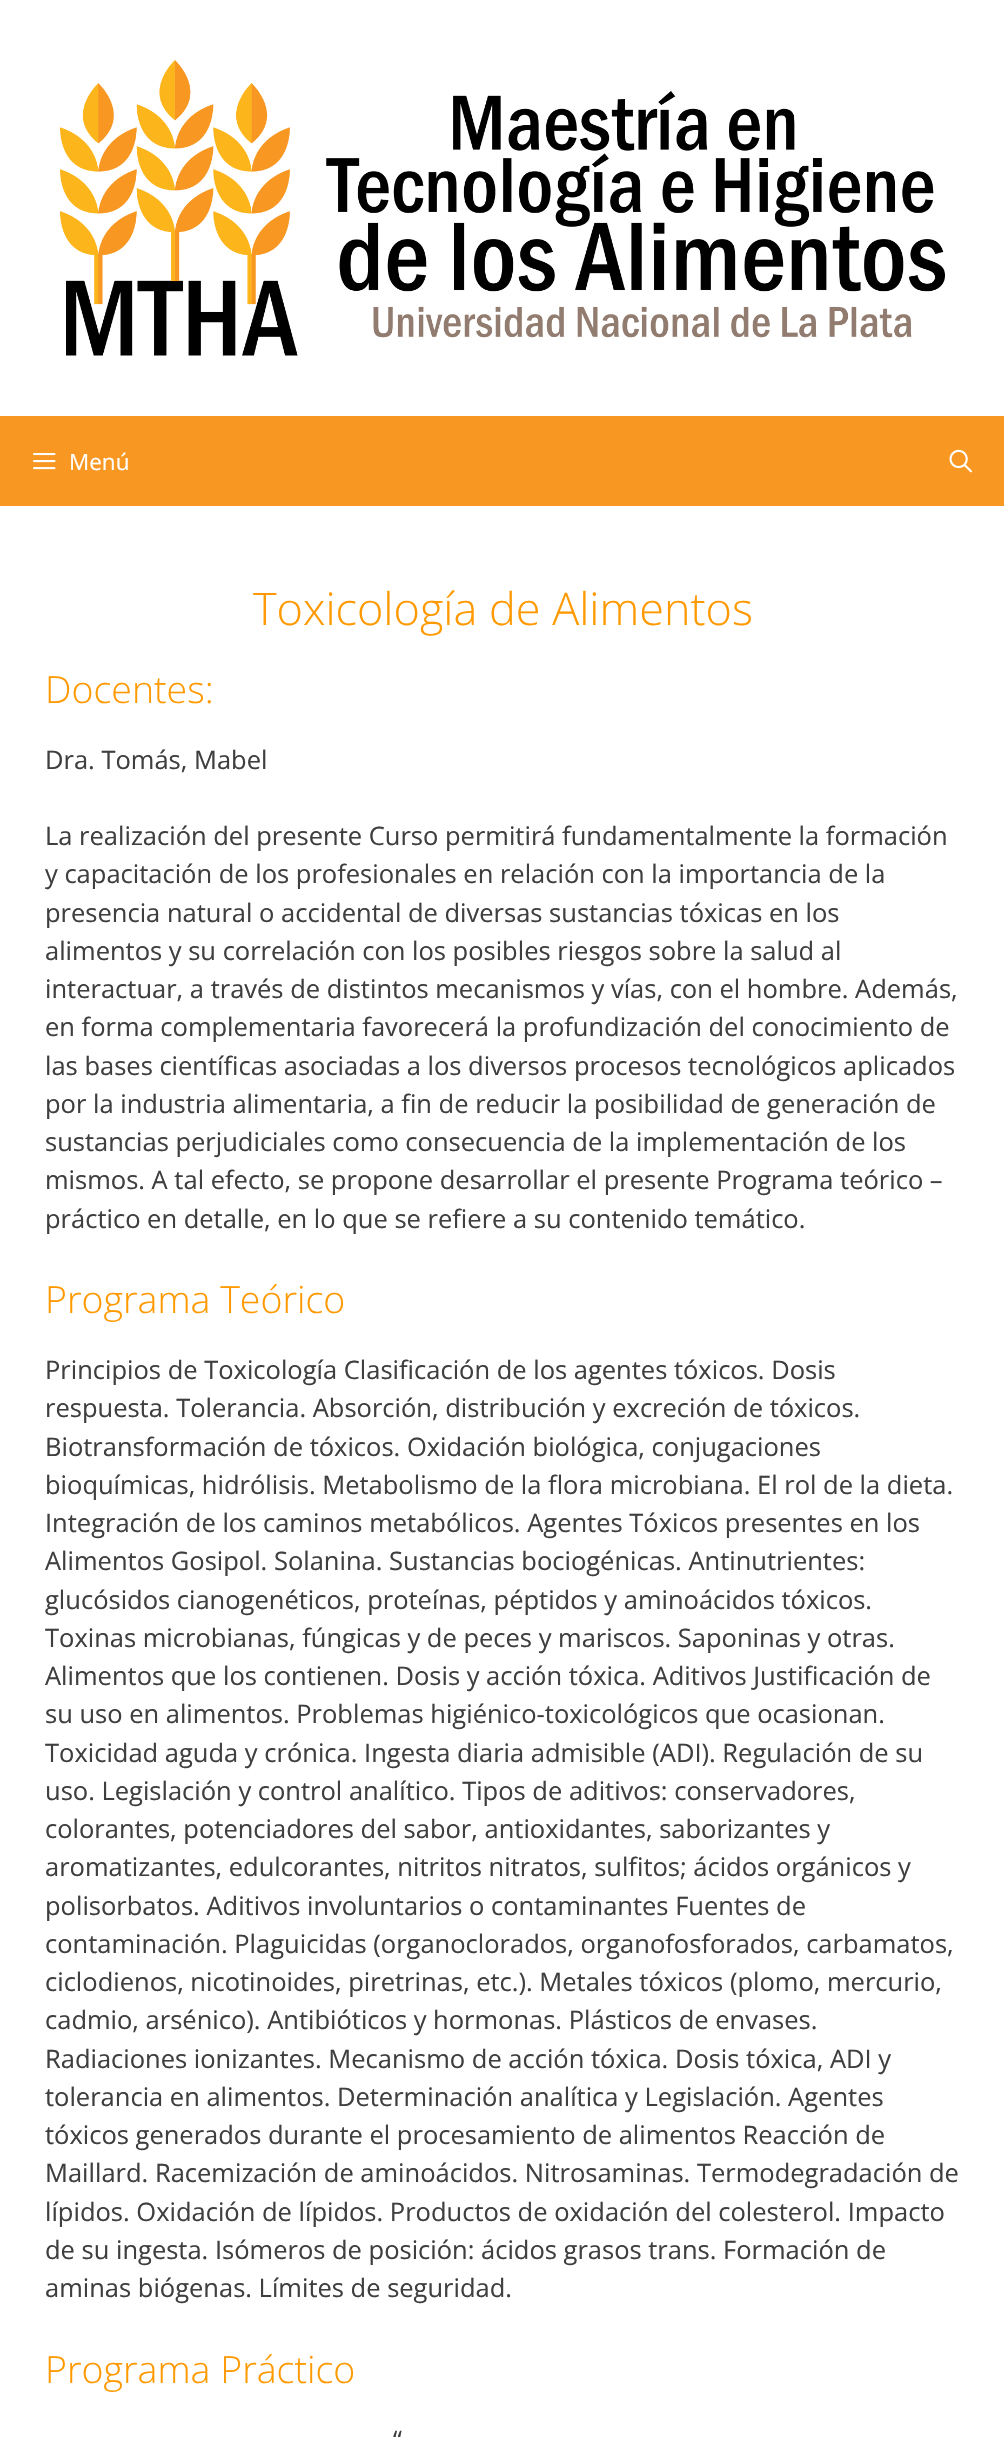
#include "include/core/SkBlurTypes.h"
#include "include/core/SkCanvas.h"
#include "include/core/SkData.h"
#include "include/core/SkFont.h"
#include "include/core/SkFontMgr.h"
#include "include/core/SkImage.h"
#include "include/core/SkMaskFilter.h"
#include "include/core/SkPaint.h"
#include "include/core/SkPathBuilder.h"
#include "include/core/SkTextBlob.h"
#include "include/effects/SkDashPathEffect.h"
#include "include/effects/SkGradientShader.h"
#include "include/utils/SkParsePath.h"

extern sk_sp<SkFontMgr> fontMgr;

static SkFont font(const char* family, int weight, float size, bool italic = false) {
    SkFontStyle style(weight, SkFontStyle::kNormal_Width,
        italic ? SkFontStyle::kItalic_Slant : SkFontStyle::kUpright_Slant);
    SkFont result(fontMgr->matchFamilyStyle(family, style), size);
    result.setSubpixel(true);
    return result;
}

static void drawLabel(SkCanvas* canvas, const char* s, float x, float y, const SkFont& font, SkColor color) {
    SkPaint ink(SkColor4f::FromColor(color));
    ink.setAntiAlias(true);
    canvas->drawString(s, x, y, font, ink);
}

static void fillRect(SkCanvas* canvas, float x, float y, float w, float h, SkColor color) {
    SkPaint ink(SkColor4f::FromColor(color));
    ink.setAntiAlias(true);
    canvas->drawRect(SkRect::MakeXYWH(x, y, w, h), ink);
}

static void drawPhoto(SkCanvas* canvas, const char* path, float x, float y, float w, float h) {
    auto image = SkImages::DeferredFromEncodedData(SkData::MakeFromFileName(path));
    canvas->drawImageRect(image, SkRect::MakeXYWH(x, y, w, h), SkSamplingOptions());
}

void draw(SkCanvas* canvas) {
    SkPaint paint;
    paint.setAntiAlias(true);
    canvas->clear(0xFFFFFFFF);
    drawPhoto(canvas, "assets/img1.png", 60, 60, 885, 296);
    fillRect(canvas, 0, 416, 1004, 90, 0xFFF89722);
    drawPhoto(canvas, "assets/img2.png", 33, 453, 23, 17);
    SkFont font1 = font("Open Sans", 400, 22.5f);
    drawLabel(canvas, "Menú", 69, 470, font1, 0xFFFFFFFF);
    drawPhoto(canvas, "assets/img3.png", 949, 449, 23, 24);
    SkFont font2 = font("Open Sans", 300, 45);
    drawLabel(canvas, "Toxicología de Alimentos", 253, 625, font2, 0xFFFF9900);
    SkFont font3 = font("Open Sans", 300, 37.5f);
    drawLabel(canvas, "Docentes:", 45, 703, font3, 0xFFFF9900);
    SkFont font4 = font("Open Sans", 400, 25.5f);
    drawLabel(canvas, "Dra. Tomás, Mabel", 45, 769, font4, 0xFF3F3F3F);
    drawLabel(canvas, "La realización del presente Curso permitirá fundamentalmente la formación", 45, 845, font4, 0xFF3F3F3F);
    drawLabel(canvas, "y capacitación de los profesionales en relación con la importancia de la", 45, 883, font4, 0xFF3F3F3F);
    drawLabel(canvas, "presencia natural o accidental de diversas sustancias tóxicas en los", 45, 922, font4, 0xFF3F3F3F);
    drawLabel(canvas, "alimentos y su correlación con los posibles riesgos sobre la salud al", 45, 960, font4, 0xFF3F3F3F);
    drawLabel(canvas, "interactuar, a través de distintos mecanismos y vías, con el hombre. Además,", 45, 998, font4, 0xFF3F3F3F);
    drawLabel(canvas, "en forma complementaria favorecerá la profundización del conocimiento de", 45, 1036, font4, 0xFF3F3F3F);
    drawLabel(canvas, "las bases científicas asociadas a los diversos procesos tecnológicos aplicados", 45, 1075, font4, 0xFF3F3F3F);
    drawLabel(canvas, "por la industria alimentaria, a fin de reducir la posibilidad de generación de", 45, 1113, font4, 0xFF3F3F3F);
    drawLabel(canvas, "sustancias perjudiciales como consecuencia de la implementación de los", 45, 1151, font4, 0xFF3F3F3F);
    drawLabel(canvas, "mismos. A tal efecto, se propone desarrollar el presente Programa teórico –", 45, 1189, font4, 0xFF3F3F3F);
    drawLabel(canvas, "práctico en detalle, en lo que se refiere a su contenido temático.", 45, 1228, font4, 0xFF3F3F3F);
    drawLabel(canvas, "Programa Teórico", 45, 1313, font3, 0xFFFF9900);
    drawLabel(canvas, "Principios de Toxicología Clasificación de los agentes tóxicos. Dosis", 45, 1379, font4, 0xFF3F3F3F);
    drawLabel(canvas, "respuesta. Tolerancia. Absorción, distribución y excreción de tóxicos.", 45, 1417, font4, 0xFF3F3F3F);
    drawLabel(canvas, "Biotransformación de tóxicos. Oxidación biológica, conjugaciones", 45, 1456, font4, 0xFF3F3F3F);
    drawLabel(canvas, "bioquímicas, hidrólisis. Metabolismo de la flora microbiana. El rol de la dieta.", 45, 1494, font4, 0xFF3F3F3F);
    drawLabel(canvas, "Integración de los caminos metabólicos. Agentes Tóxicos presentes en los", 45, 1532, font4, 0xFF3F3F3F);
    drawLabel(canvas, "Alimentos Gosipol. Solanina. Sustancias bociogénicas. Antinutrientes:", 45, 1570, font4, 0xFF3F3F3F);
    drawLabel(canvas, "glucósidos cianogenéticos, proteínas, péptidos y aminoácidos tóxicos.", 45, 1609, font4, 0xFF3F3F3F);
    drawLabel(canvas, "Toxinas microbianas, fúngicas y de peces y mariscos. Saponinas y otras.", 45, 1647, font4, 0xFF3F3F3F);
    drawLabel(canvas, "Alimentos que los contienen. Dosis y acción tóxica. Aditivos Justificación de", 45, 1685, font4, 0xFF3F3F3F);
    drawLabel(canvas, "su uso en alimentos. Problemas higiénico-toxicológicos que ocasionan.", 45, 1723, font4, 0xFF3F3F3F);
    drawLabel(canvas, "Toxicidad aguda y crónica. Ingesta diaria admisible (ADI). Regulación de su", 45, 1762, font4, 0xFF3F3F3F);
    drawLabel(canvas, "uso. Legislación y control analítico. Tipos de aditivos: conservadores,", 45, 1800, font4, 0xFF3F3F3F);
    drawLabel(canvas, "colorantes, potenciadores del sabor, antioxidantes, saborizantes y", 45, 1838, font4, 0xFF3F3F3F);
    drawLabel(canvas, "aromatizantes, edulcorantes, nitritos nitratos, sulfitos; ácidos orgánicos y", 45, 1876, font4, 0xFF3F3F3F);
    drawLabel(canvas, "polisorbatos. Aditivos involuntarios o contaminantes Fuentes de", 45, 1915, font4, 0xFF3F3F3F);
    drawLabel(canvas, "contaminación. Plaguicidas (organoclorados, organofosforados, carbamatos,", 45, 1953, font4, 0xFF3F3F3F);
    drawLabel(canvas, "ciclodienos, nicotinoides, piretrinas, etc.). Metales tóxicos (plomo, mercurio,", 45, 1991, font4, 0xFF3F3F3F);
    drawLabel(canvas, "cadmio, arsénico). Antibióticos y hormonas. Plásticos de envases.", 45, 2029, font4, 0xFF3F3F3F);
    drawLabel(canvas, "Radiaciones ionizantes. Mecanismo de acción tóxica. Dosis tóxica, ADI y", 45, 2068, font4, 0xFF3F3F3F);
    drawLabel(canvas, "tolerancia en alimentos. Determinación analítica y Legislación. Agentes", 45, 2106, font4, 0xFF3F3F3F);
    drawLabel(canvas, "tóxicos generados durante el procesamiento de alimentos Reacción de", 45, 2144, font4, 0xFF3F3F3F);
    drawLabel(canvas, "Maillard. Racemización de aminoácidos. Nitrosaminas. Termodegradación de", 45, 2182, font4, 0xFF3F3F3F);
    drawLabel(canvas, "lípidos. Oxidación de lípidos. Productos de oxidación del colesterol. Impacto", 45, 2221, font4, 0xFF3F3F3F);
    drawLabel(canvas, "de su ingesta. Isómeros de posición: ácidos grasos trans. Formación de", 45, 2259, font4, 0xFF3F3F3F);
    drawLabel(canvas, "aminas biógenas. Límites de seguridad.", 45, 2297, font4, 0xFF3F3F3F);
    drawLabel(canvas, "Programa Práctico", 45, 2383, font3, 0xFFFF9900);
    drawLabel(canvas, "“", 393, 2449, font4, 0xFF3F3F3F);
}
